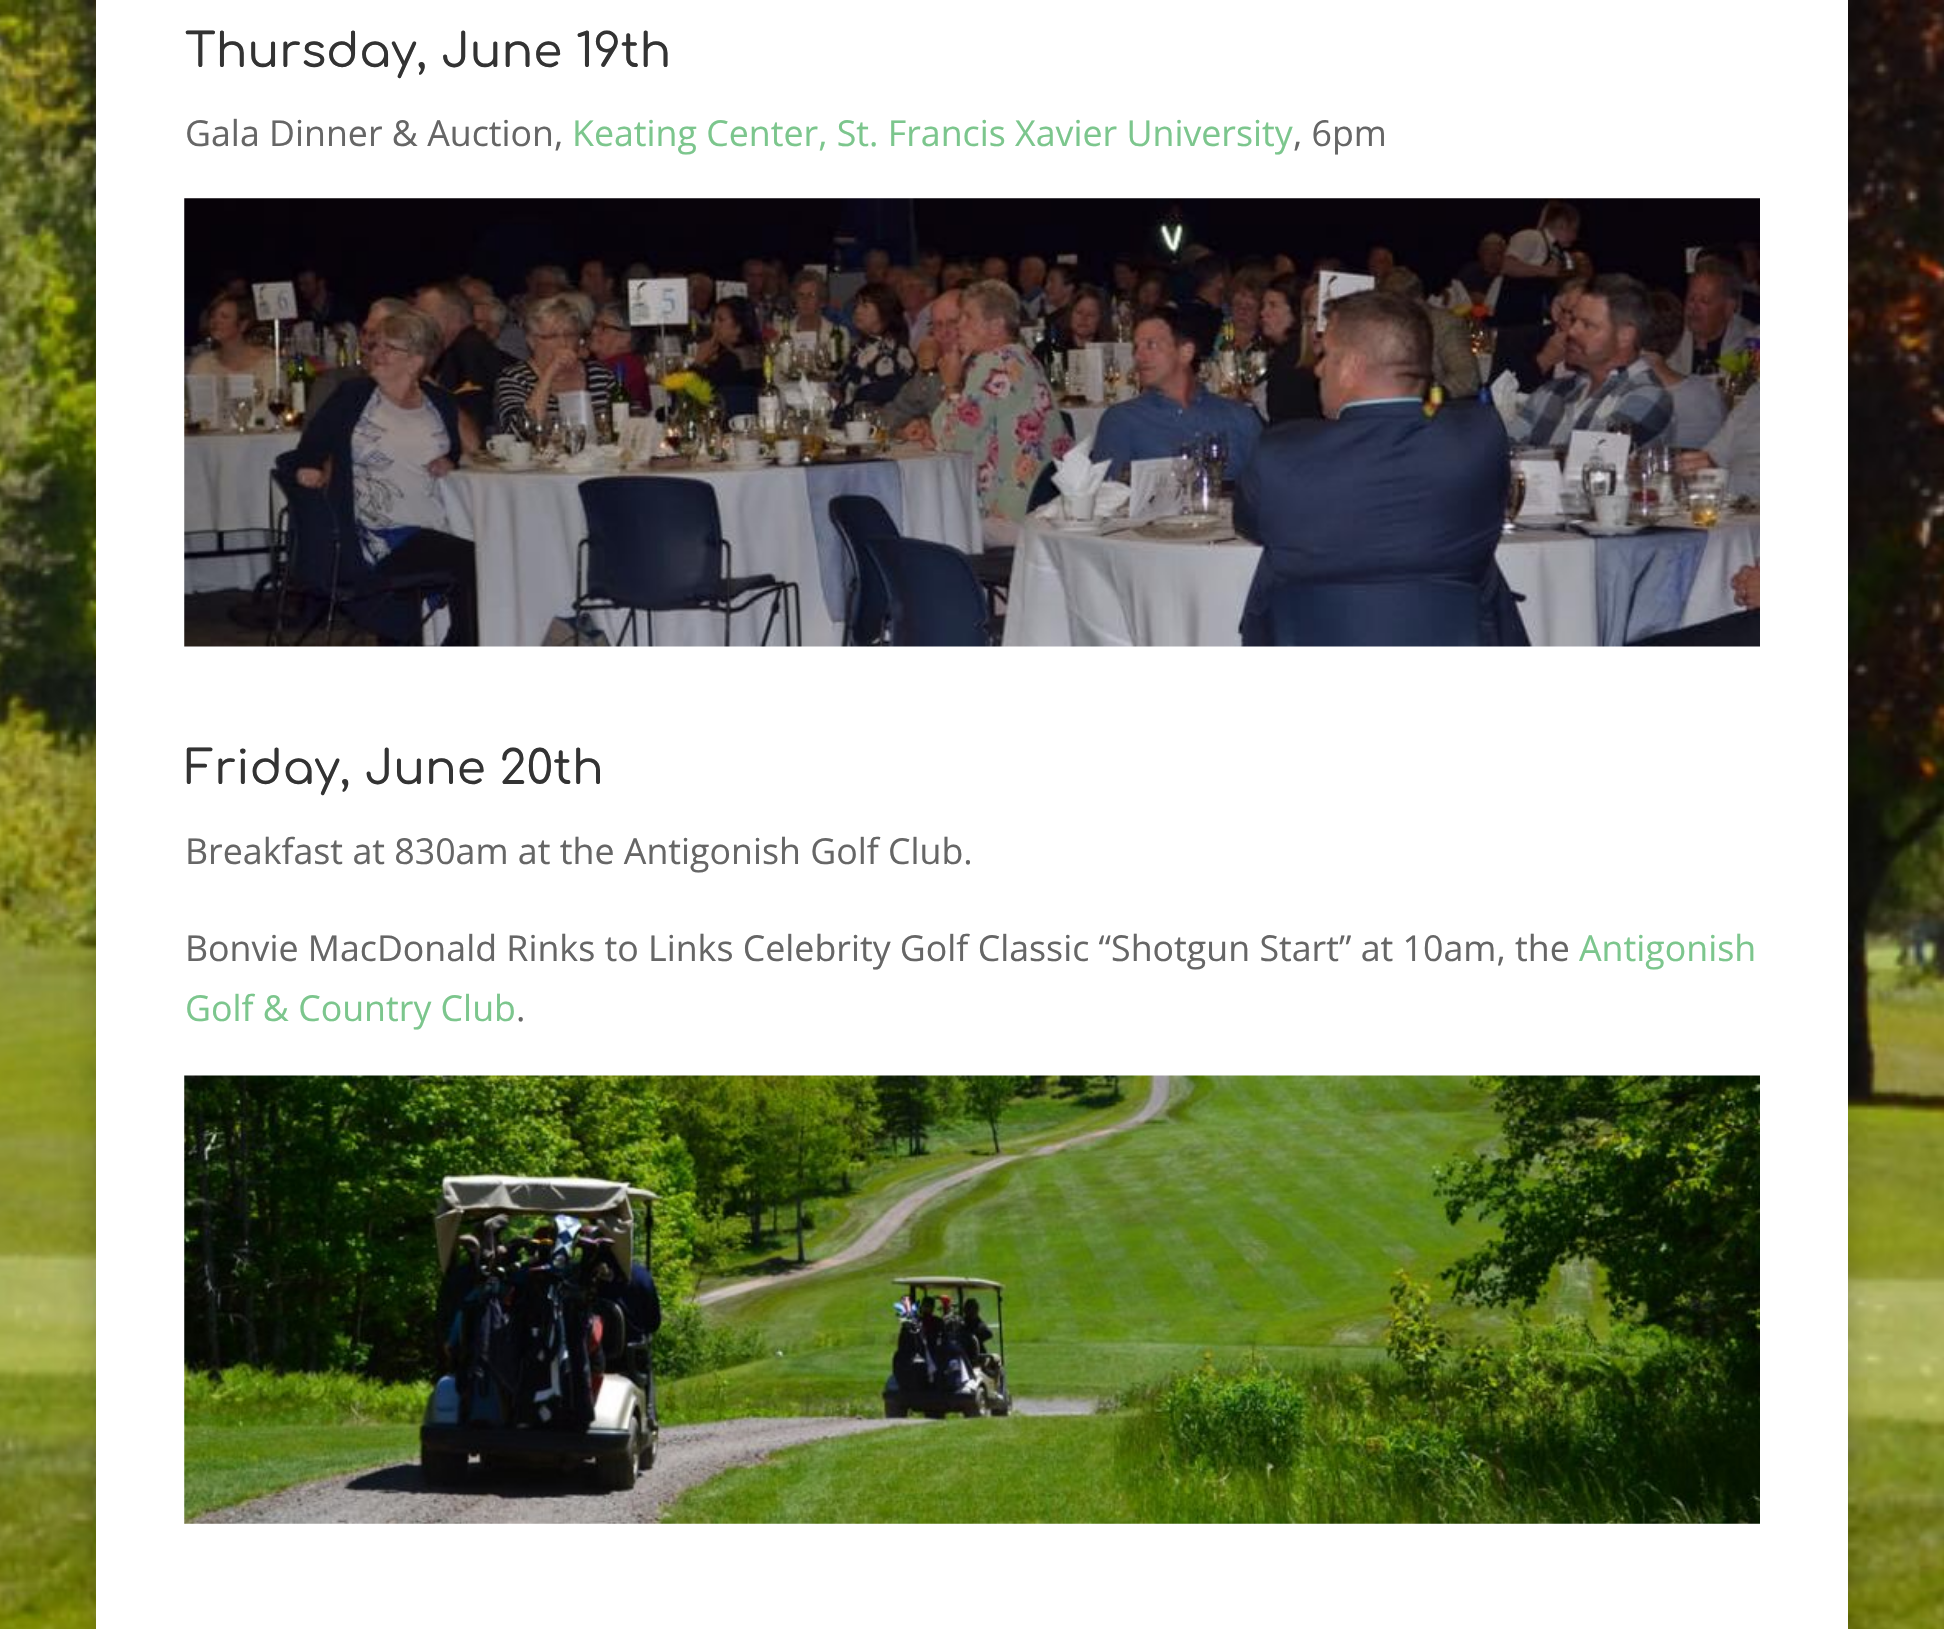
#include "include/core/SkBlurTypes.h"
#include "include/core/SkCanvas.h"
#include "include/core/SkData.h"
#include "include/core/SkFont.h"
#include "include/core/SkFontMgr.h"
#include "include/core/SkImage.h"
#include "include/core/SkMaskFilter.h"
#include "include/core/SkPaint.h"
#include "include/core/SkPathBuilder.h"
#include "include/core/SkTextBlob.h"
#include "include/effects/SkDashPathEffect.h"
#include "include/effects/SkGradientShader.h"
#include "include/utils/SkParsePath.h"

extern sk_sp<SkFontMgr> fontMgr;

static SkFont font(const char* family, int weight, float size, bool italic = false) {
    SkFontStyle style(weight, SkFontStyle::kNormal_Width,
        italic ? SkFontStyle::kItalic_Slant : SkFontStyle::kUpright_Slant);
    SkFont result(fontMgr->matchFamilyStyle(family, style), size);
    result.setSubpixel(true);
    return result;
}

static void drawLabel(SkCanvas* canvas, const char* s, float x, float y, const SkFont& font, SkColor color) {
    SkPaint ink(SkColor4f::FromColor(color));
    ink.setAntiAlias(true);
    canvas->drawString(s, x, y, font, ink);
}

static void fillRect(SkCanvas* canvas, float x, float y, float w, float h, SkColor color) {
    SkPaint ink(SkColor4f::FromColor(color));
    ink.setAntiAlias(true);
    canvas->drawRect(SkRect::MakeXYWH(x, y, w, h), ink);
}

static void drawPhoto(SkCanvas* canvas, const char* path, float x, float y, float w, float h) {
    auto image = SkImages::DeferredFromEncodedData(SkData::MakeFromFileName(path));
    canvas->drawImageRect(image, SkRect::MakeXYWH(x, y, w, h), SkSamplingOptions());
}

void draw(SkCanvas* canvas) {
    SkPaint paint;
    paint.setAntiAlias(true);
    canvas->clear(0xFFFFFFFF);
    drawPhoto(canvas, "assets/img1.png", 0, 0, 1944, 1629);
    paint.setColor(0x33000000);
    paint.setMaskFilter(SkMaskFilter::MakeBlur(kNormal_SkBlurStyle, 14));
    canvas->drawRect(SkRect::MakeXYWH(96, -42, 1752, 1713), paint);
    paint.setMaskFilter(nullptr);
    fillRect(canvas, 96, 0, 1752, 1629, 0xFFFFFFFF);
    SkFont font1 = font("Comfortaa", 500, 46.75f);
    drawLabel(canvas, "Thursday, June 19th", 185, 67, font1, 0xFF333333);
    SkFont font2 = font("Open Sans", 400, 35.75f);
    drawLabel(canvas, "Gala Dinner & Auction,", 185, 146, font2, 0xFF666666);
    drawLabel(canvas, "Keating Center, St. Francis Xavier University", 572, 146, font2, 0xFF7CC68D);
    drawLabel(canvas, ", 6pm", 1293, 146, font2, 0xFF666666);
    drawPhoto(canvas, "assets/img2.png", 184, 198, 1576, 449);
    drawLabel(canvas, "Friday, June 20th", 185, 784, font1, 0xFF333333);
    drawLabel(canvas, "Breakfast at 830am at the Antigonish Golf Club.", 185, 864, font2, 0xFF666666);
    drawLabel(canvas, "Bonvie MacDonald Rinks to Links Celebrity Golf Classic “Shotgun Start” at 10am, the", 185, 961, font2, 0xFF666666);
    drawLabel(canvas, "Antigonish", 1579, 961, font2, 0xFF7CC68D);
    drawLabel(canvas, "Golf & Country Club", 185, 1021, font2, 0xFF7CC68D);
    drawLabel(canvas, ".", 516, 1021, font2, 0xFF666666);
    drawPhoto(canvas, "assets/img3.png", 184, 1075, 1576, 449);
}
